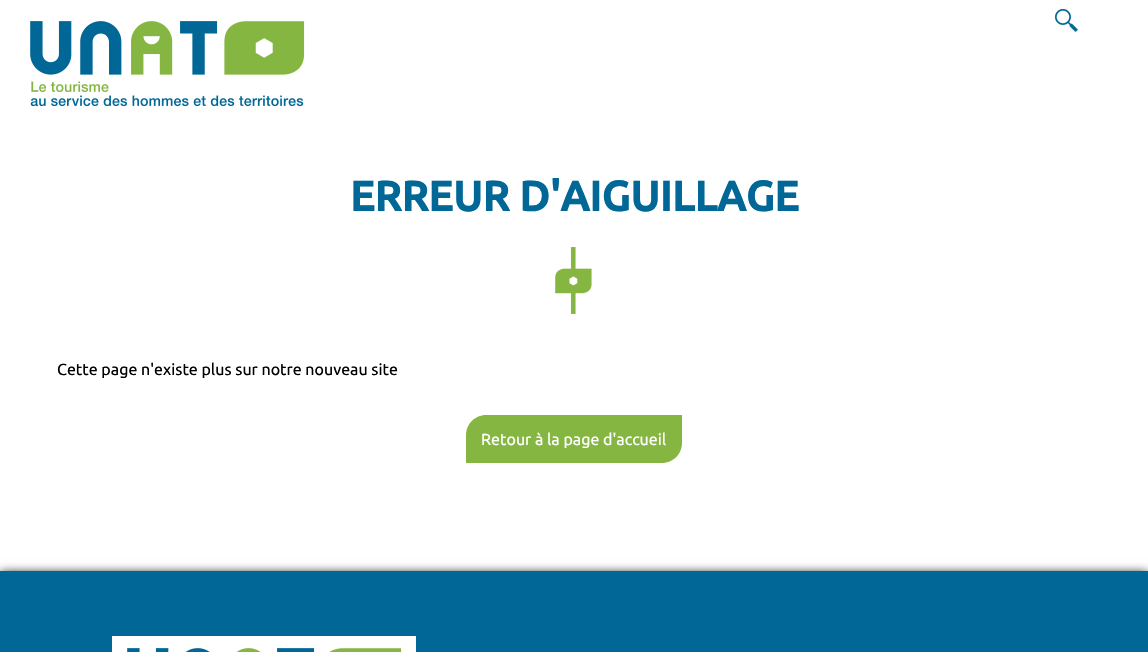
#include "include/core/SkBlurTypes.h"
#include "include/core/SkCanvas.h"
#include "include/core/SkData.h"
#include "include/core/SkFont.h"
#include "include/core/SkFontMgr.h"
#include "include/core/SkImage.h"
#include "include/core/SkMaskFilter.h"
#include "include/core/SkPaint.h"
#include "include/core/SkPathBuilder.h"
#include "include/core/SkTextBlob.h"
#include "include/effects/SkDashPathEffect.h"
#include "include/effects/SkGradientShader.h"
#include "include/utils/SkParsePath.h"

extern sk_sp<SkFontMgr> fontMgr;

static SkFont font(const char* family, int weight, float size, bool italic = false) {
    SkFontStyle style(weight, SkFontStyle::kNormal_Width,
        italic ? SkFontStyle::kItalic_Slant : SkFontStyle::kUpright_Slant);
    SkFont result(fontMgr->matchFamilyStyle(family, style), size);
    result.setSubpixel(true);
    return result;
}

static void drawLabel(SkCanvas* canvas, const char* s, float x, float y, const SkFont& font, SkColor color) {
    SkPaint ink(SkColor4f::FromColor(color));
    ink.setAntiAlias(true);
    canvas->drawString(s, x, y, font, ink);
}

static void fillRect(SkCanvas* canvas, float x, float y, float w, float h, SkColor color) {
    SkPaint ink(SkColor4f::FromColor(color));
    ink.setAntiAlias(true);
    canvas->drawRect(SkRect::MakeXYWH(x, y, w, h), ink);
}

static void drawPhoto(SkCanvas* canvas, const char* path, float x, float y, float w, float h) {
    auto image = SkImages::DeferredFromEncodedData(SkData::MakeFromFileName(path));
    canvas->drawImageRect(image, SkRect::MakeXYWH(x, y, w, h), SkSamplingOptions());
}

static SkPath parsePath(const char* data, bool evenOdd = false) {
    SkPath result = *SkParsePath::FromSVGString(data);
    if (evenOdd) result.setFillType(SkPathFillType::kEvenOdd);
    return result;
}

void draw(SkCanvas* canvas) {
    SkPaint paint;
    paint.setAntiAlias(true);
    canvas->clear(0xFFFFFFFF);
    drawPhoto(canvas, "assets/img1.png", 30, 21, 275, 86);
    drawPhoto(canvas, "assets/img2.png", 1055, 9, 23, 23);
    SkFont font1 = font("Ubuntu", 700, 42);
    drawLabel(canvas, "ERREUR D'AIGUILLAGE", 350, 211, font1, 0xFF006796);
    drawPhoto(canvas, "assets/img3.png", 555, 247, 37, 67);
    SkFont font2 = font("Ubuntu", 400, 16);
    drawLabel(canvas, "Cette page n'existe plus sur notre nouveau site", 57, 375, font2, 0xFF000000);
    paint.setColor(0xFF86B642);
    canvas->drawPath(parsePath("M486 415H682V443C682 454 673 463 662 463H466V435C466 424 475 415 486 415Z"), paint);
    drawLabel(canvas, "Retour à la page d'accueil", 481, 445, font2, 0xFFFFFFFF);
    paint.setColor(0xFF000000);
    paint.setMaskFilter(SkMaskFilter::MakeBlur(kNormal_SkBlurStyle, 5));
    canvas->drawRect(SkRect::MakeXYWH(0, 573, 1148, 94), paint);
    paint.setMaskFilter(nullptr);
    fillRect(canvas, 0, 571, 1148, 81, 0xFF006796);
    fillRect(canvas, 112, 636, 304, 16, 0xFFFFFFFF);
    drawPhoto(canvas, "assets/img4.png", 127, 648, 275, 4);
}
